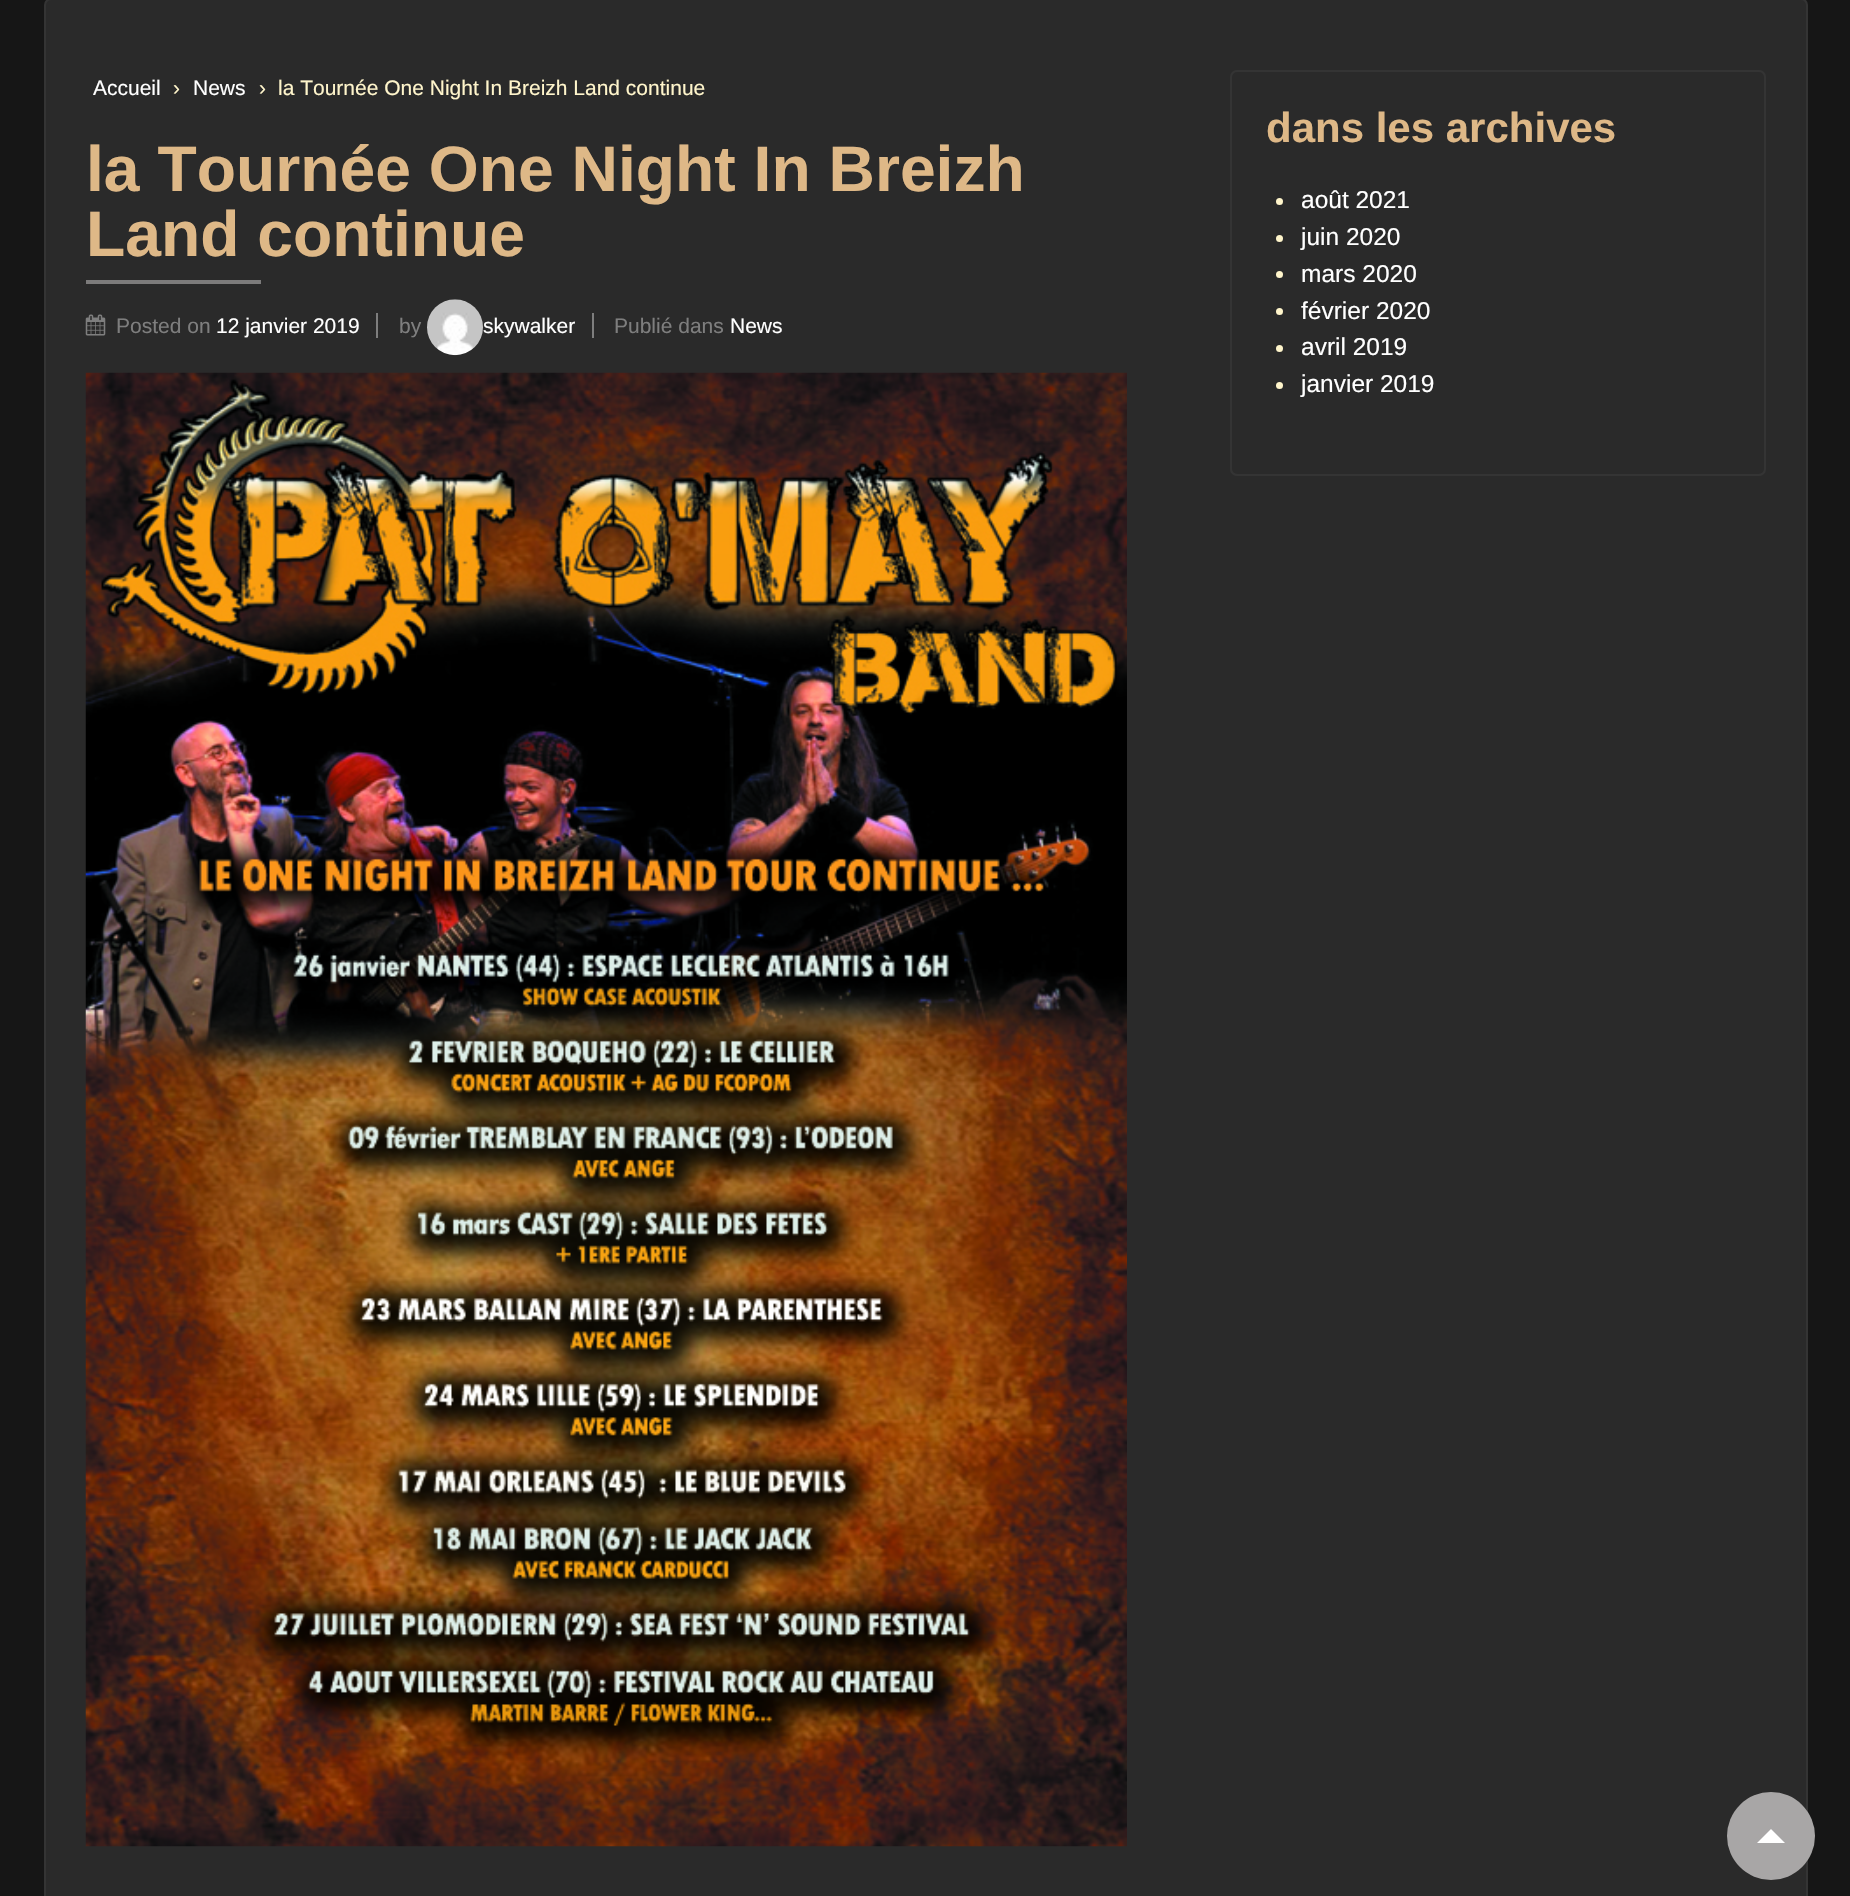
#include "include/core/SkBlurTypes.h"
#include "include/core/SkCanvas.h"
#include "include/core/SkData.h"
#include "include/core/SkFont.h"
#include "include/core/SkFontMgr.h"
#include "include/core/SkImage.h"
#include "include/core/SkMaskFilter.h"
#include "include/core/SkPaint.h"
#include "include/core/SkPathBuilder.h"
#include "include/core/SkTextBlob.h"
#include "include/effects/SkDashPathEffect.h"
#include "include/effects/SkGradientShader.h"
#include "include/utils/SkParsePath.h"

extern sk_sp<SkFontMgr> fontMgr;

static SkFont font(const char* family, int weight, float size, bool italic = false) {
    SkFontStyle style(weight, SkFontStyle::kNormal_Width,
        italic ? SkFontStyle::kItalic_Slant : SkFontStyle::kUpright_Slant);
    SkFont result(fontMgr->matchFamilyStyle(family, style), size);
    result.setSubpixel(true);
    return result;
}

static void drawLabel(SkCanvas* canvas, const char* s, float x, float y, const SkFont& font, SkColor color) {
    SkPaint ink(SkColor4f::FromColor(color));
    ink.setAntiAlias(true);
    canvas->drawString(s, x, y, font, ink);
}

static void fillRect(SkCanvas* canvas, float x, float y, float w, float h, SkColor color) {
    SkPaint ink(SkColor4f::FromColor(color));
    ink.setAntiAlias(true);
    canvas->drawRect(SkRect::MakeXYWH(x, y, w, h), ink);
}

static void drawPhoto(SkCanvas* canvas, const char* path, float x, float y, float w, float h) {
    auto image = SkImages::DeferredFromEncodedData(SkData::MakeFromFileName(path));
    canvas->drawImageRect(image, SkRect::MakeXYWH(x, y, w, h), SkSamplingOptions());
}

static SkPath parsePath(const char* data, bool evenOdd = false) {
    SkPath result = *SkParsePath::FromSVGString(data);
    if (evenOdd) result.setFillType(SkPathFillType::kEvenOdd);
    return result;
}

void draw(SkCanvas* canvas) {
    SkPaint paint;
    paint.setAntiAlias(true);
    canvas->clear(0xFF161616);
    paint.setColor(0xFF2A2A2A);
    canvas->drawRoundRect(SkRect::MakeXYWH(45, -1, 1762, 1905), 6, 6, paint);
    paint.setStroke(true);
    paint.setStrokeWidth(2);
    paint.setColor(0xFF343434);
    canvas->drawRoundRect(SkRect::MakeXYWH(45, -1, 1762, 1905), 6, 6, paint);
    SkFont font1 = font("Liberation Sans", 400, 21);
    drawLabel(canvas, "Accueil", 93, 95, font1, 0xFFFFFFFF);
    drawLabel(canvas, "›", 173, 95, font1, 0xFFFFF5CB);
    drawLabel(canvas, "News", 193, 95, font1, 0xFFFFFFFF);
    drawLabel(canvas, "›", 259, 95, font1, 0xFFFFF5CB);
    drawLabel(canvas, "la Tournée One Night In Breizh Land continue", 278, 95, font1, 0xFFFFF5CB);
    SkFont font2 = font("Liberation Sans", 700, 64.25f);
    drawLabel(canvas, "la Tournée One Night In Breizh", 86, 191, font2, 0xFFDEB887);
    drawLabel(canvas, "Land continue", 86, 256, font2, 0xFFDEB887);
    fillRect(canvas, 86, 280, 175, 4, 0xFF7C7B7B);
    drawPhoto(canvas, "assets/img1.png", 85, 314, 21, 22);
    drawLabel(canvas, "Posted on", 116, 333, font1, 0xFF7E7E7E);
    drawLabel(canvas, "12 janvier 2019", 216, 333, font1, 0xFFFFFFFF);
    fillRect(canvas, 376, 313, 2, 25, 0xFF7E7E7E);
    drawLabel(canvas, "by", 399, 333, font1, 0xFF7E7E7E);
    drawPhoto(canvas, "assets/img2.png", 427, 299, 56, 57);
    drawLabel(canvas, "skywalker", 483, 333, font1, 0xFFFFFFFF);
    fillRect(canvas, 592, 313, 2, 25, 0xFF7E7E7E);
    drawLabel(canvas, "Publié dans", 614, 333, font1, 0xFF7E7E7E);
    drawLabel(canvas, "News", 730, 333, font1, 0xFFFFFFFF);
    drawPhoto(canvas, "assets/img3.png", 85, 372, 1042, 1475);
    canvas->drawRoundRect(SkRect::MakeXYWH(1231, 71, 534, 404), 6, 6, paint);
    SkFont font3 = font("Liberation Sans", 700, 42);
    drawLabel(canvas, "dans les archives", 1266, 142, font3, 0xFFDEB887);
    paint.setStroke(false);
    paint.setColor(0xFFFFF5CB);
    canvas->drawCircle(1279.5f, 201.5f, 3.5f, paint);
    SkFont font4 = font("Liberation Sans", 400, 24.5f);
    drawLabel(canvas, "août 2021", 1301, 208, font4, 0xFFFFFFFF);
    canvas->drawCircle(1279.5f, 238.5f, 3.5f, paint);
    drawLabel(canvas, "juin 2020", 1301, 245, font4, 0xFFFFFFFF);
    canvas->drawCircle(1279.5f, 274.5f, 3.5f, paint);
    drawLabel(canvas, "mars 2020", 1301, 282, font4, 0xFFFFFFFF);
    canvas->drawCircle(1279.5f, 311.5f, 3.5f, paint);
    drawLabel(canvas, "février 2020", 1301, 319, font4, 0xFFFFFFFF);
    canvas->drawCircle(1279.5f, 348.5f, 3.5f, paint);
    drawLabel(canvas, "avril 2019", 1301, 355, font4, 0xFFFFFFFF);
    canvas->drawCircle(1279.5f, 385.5f, 3.5f, paint);
    drawLabel(canvas, "janvier 2019", 1301, 392, font4, 0xFFFFFFFF);
    paint.setColor(0xFFA8A6A6);
    canvas->drawCircle(1771, 1836, 44, paint);
    paint.setColor(0xFFFFFFFF);
    canvas->drawPath(parsePath("M1785 1843H1757L1771 1829Z"), paint);
}
